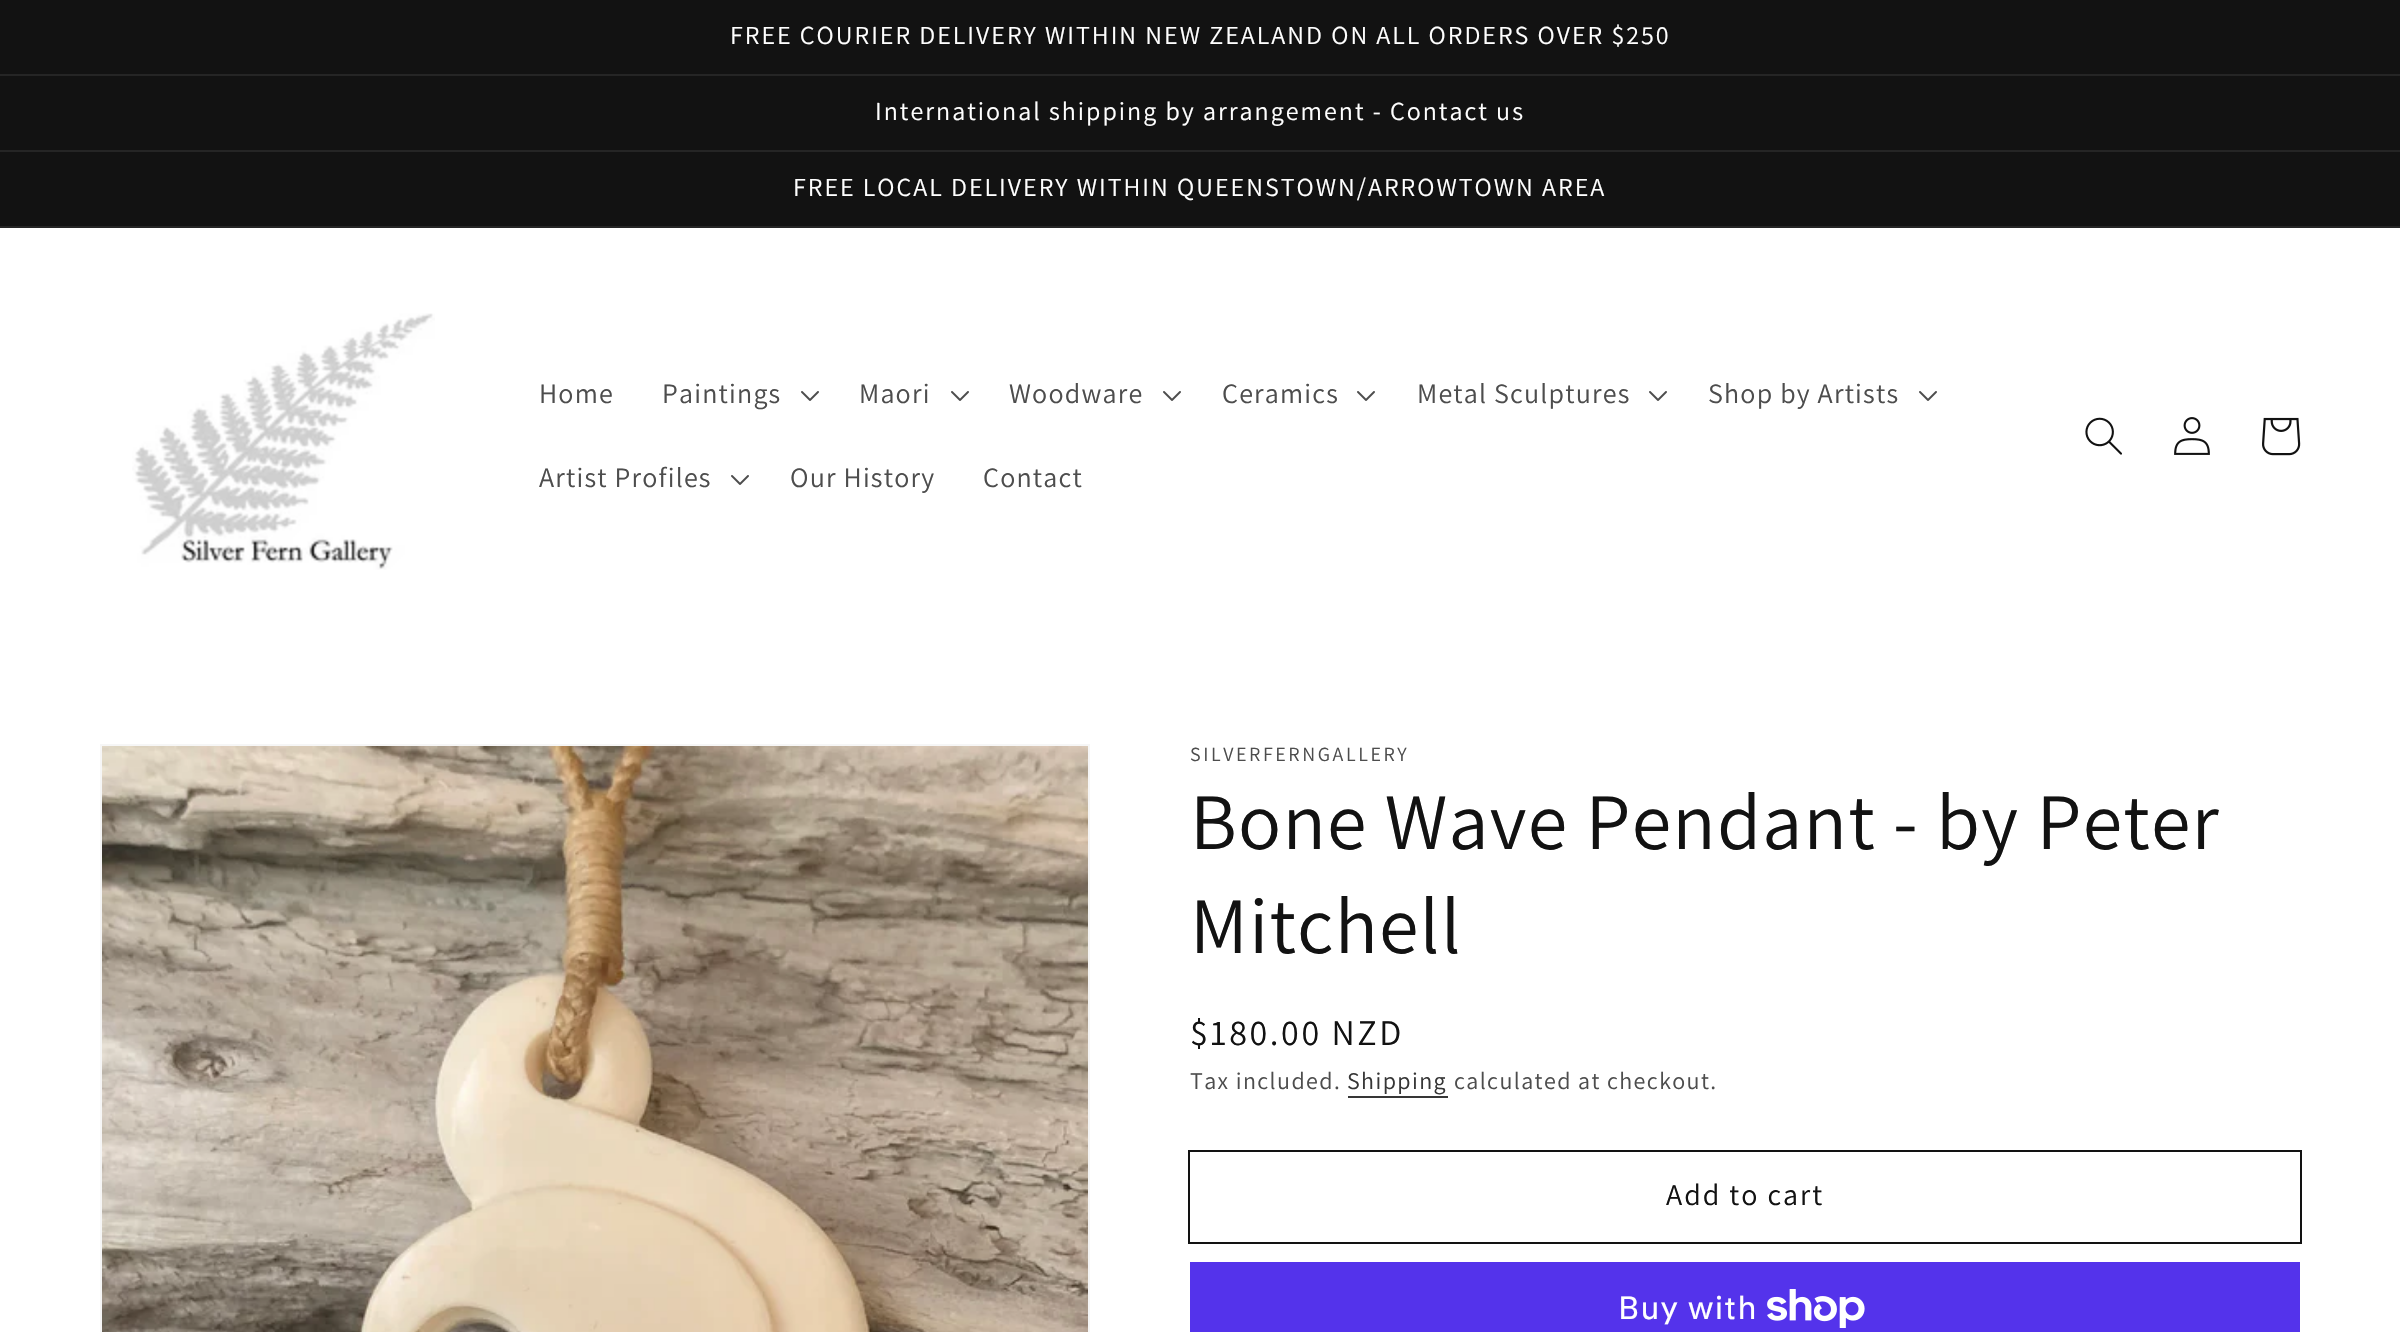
#include "include/core/SkBlurTypes.h"
#include "include/core/SkCanvas.h"
#include "include/core/SkData.h"
#include "include/core/SkFont.h"
#include "include/core/SkFontMgr.h"
#include "include/core/SkImage.h"
#include "include/core/SkMaskFilter.h"
#include "include/core/SkPaint.h"
#include "include/core/SkPathBuilder.h"
#include "include/core/SkTextBlob.h"
#include "include/effects/SkDashPathEffect.h"
#include "include/effects/SkGradientShader.h"
#include "include/utils/SkParsePath.h"

extern sk_sp<SkFontMgr> fontMgr;

static SkFont font(const char* family, int weight, float size, bool italic = false) {
    SkFontStyle style(weight, SkFontStyle::kNormal_Width,
        italic ? SkFontStyle::kItalic_Slant : SkFontStyle::kUpright_Slant);
    SkFont result(fontMgr->matchFamilyStyle(family, style), size);
    result.setSubpixel(true);
    return result;
}

static void drawTracked(SkCanvas* canvas, const char* s, float x, float y, const SkFont& font, const SkPaint& ink, float letter, float word) {
    std::vector<SkGlyphID> glyphs(font.countText(s, strlen(s), SkTextEncoding::kUTF8));
    std::vector<float> xs(glyphs.size());
    font.textToGlyphs(s, strlen(s), SkTextEncoding::kUTF8, glyphs);
    font.getXPos(glyphs, xs, x);
    float extra = 0;
    for (size_t i = 0; i < glyphs.size(); i++) {
        xs[i] += extra;
        extra += letter + word * (glyphs[i] == font.unicharToGlyph(' '));
    }
    canvas->drawTextBlob(SkTextBlob::MakeFromPosHGlyphs(glyphs, xs, y, font), 0, 0, ink);
}

static void fillRect(SkCanvas* canvas, float x, float y, float w, float h, SkColor color) {
    SkPaint ink(SkColor4f::FromColor(color));
    ink.setAntiAlias(true);
    canvas->drawRect(SkRect::MakeXYWH(x, y, w, h), ink);
}

static void drawPhoto(SkCanvas* canvas, const char* path, float x, float y, float w, float h) {
    auto image = SkImages::DeferredFromEncodedData(SkData::MakeFromFileName(path));
    canvas->drawImageRect(image, SkRect::MakeXYWH(x, y, w, h), SkSamplingOptions());
}

void draw(SkCanvas* canvas) {
    SkPaint paint;
    paint.setAntiAlias(true);
    canvas->clear(0xFFFFFFFF);
    fillRect(canvas, 0, 0, 2400, 74, 0xFF121212);
    fillRect(canvas, 0, 74, 2400, 2, 0xFF252525);
    SkFont font1 = font("Assistant", 400, 26);
    paint.setColor(0xFFFFFFFF);
    drawTracked(canvas, "FREE COURIER DELIVERY WITHIN NEW ZEALAND ON ALL ORDERS OVER $250", 730, 44, font1, paint, 2, 0);
    fillRect(canvas, 0, 76, 2400, 74, 0xFF121212);
    fillRect(canvas, 0, 150, 2400, 2, 0xFF252525);
    drawTracked(canvas, "International shipping by arrangement - Contact us", 875, 120, font1, paint, 2, 0);
    fillRect(canvas, 0, 152, 2400, 74, 0xFF121212);
    fillRect(canvas, 0, 226, 2400, 2, 0xFF252525);
    drawTracked(canvas, "FREE LOCAL DELIVERY WITHIN QUEENSTOWN/ARROWTOWN AREA", 793, 196, font1, paint, 2, 0);
    drawPhoto(canvas, "assets/img1.png", 132, 313, 303, 257);
    SkFont font2 = font("Assistant", 400, 28);
    paint.setColor(0xFF4D4D4D);
    drawTracked(canvas, "Home", 539, 403, font2, paint, 1.2f, 0);
    drawTracked(canvas, "Paintings", 662, 403, font2, paint, 1.2f, 0);
    drawPhoto(canvas, "assets/img2.png", 801, 391, 18, 10);
    drawTracked(canvas, "Maori", 859, 403, font2, paint, 1.2f, 0);
    drawPhoto(canvas, "assets/img2.png", 951, 391, 18, 10);
    drawTracked(canvas, "Woodware", 1009, 403, font2, paint, 1.2f, 0);
    drawPhoto(canvas, "assets/img2.png", 1163, 391, 18, 10);
    drawTracked(canvas, "Ceramics", 1222, 403, font2, paint, 1.2f, 0);
    drawPhoto(canvas, "assets/img2.png", 1357, 391, 18, 10);
    drawTracked(canvas, "Metal Sculptures", 1417, 403, font2, paint, 1.2f, 0);
    drawPhoto(canvas, "assets/img2.png", 1649, 391, 18, 10);
    drawTracked(canvas, "Shop by Artists", 1708, 403, font2, paint, 1.2f, 0);
    drawPhoto(canvas, "assets/img2.png", 1919, 391, 18, 10);
    drawTracked(canvas, "Artist Profiles", 539, 487, font2, paint, 1.2f, 0);
    drawPhoto(canvas, "assets/img2.png", 731, 475, 18, 10);
    drawTracked(canvas, "Our History", 790, 487, font2, paint, 1.2f, 0);
    drawTracked(canvas, "Contact", 983, 487, font2, paint, 1.2f, 0);
    drawPhoto(canvas, "assets/img3.png", 2085, 417, 37, 38);
    drawPhoto(canvas, "assets/img4.png", 2174, 417, 36, 38);
    drawPhoto(canvas, "assets/img5.png", 2262, 417, 39, 39);
    paint.setStroke(true);
    paint.setStrokeWidth(2);
    paint.setColor(0xFFF6F6F6);
    canvas->drawRect(SkRect::MakeXYWH(101, 745, 988, 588), paint);
    drawPhoto(canvas, "assets/img6.png", 102, 746, 986, 586);
    SkFont font3 = font("Assistant", 400, 20);
    paint.setStroke(false);
    paint.setColor(0xFF4D4D4D);
    drawTracked(canvas, "SILVERFERNGALLERY", 1190, 761, font3, paint, 2.6f, 0);
    SkFont font4 = font("Assistant", 400, 80);
    paint.setColor(0xFF121212);
    drawTracked(canvas, "Bone Wave Pendant - by Peter", 1190, 849, font4, paint, 1.2f, 0);
    drawTracked(canvas, "Mitchell", 1190, 953, font4, paint, 1.2f, 0);
    SkFont font5 = font("Assistant", 400, 36);
    drawTracked(canvas, "$180.00 NZD", 1190, 1045, font5, paint, 2.6f, 0);
    SkFont font6 = font("Assistant", 400, 24);
    paint.setColor(0xFF4D4D4D);
    drawTracked(canvas, "Tax included.", 1190, 1089, font6, paint, 1.4f, 0);
    paint.setColor(0xFF363636);
    drawTracked(canvas, "Shipping", 1347, 1089, font6, paint, 1.4f, 0);
    fillRect(canvas, 1348, 1096, 100, 2, 0xFF363636);
    paint.setColor(0xFF4D4D4D);
    drawTracked(canvas, "calculated at checkout.", 1454, 1089, font6, paint, 1.4f, 0);
    paint.setStroke(true);
    paint.setColor(0xFF121212);
    canvas->drawRect(SkRect::MakeXYWH(1189, 1151, 1112, 92), paint);
    SkFont font7 = font("Assistant", 400, 30);
    paint.setStroke(false);
    drawTracked(canvas, "Add to cart", 1666, 1205, font7, paint, 2, 0);
    fillRect(canvas, 1190, 1262, 1110, 70, 0xFF5433EB);
    SkFont font8 = font("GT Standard", 400, 32);
    paint.setColor(0xFFFFFFFF);
    drawTracked(canvas, "Buy with", 1618, 1319, font8, paint, 1.2f, 0);
    drawPhoto(canvas, "assets/img7.png", 1767, 1289, 98, 39);
}
